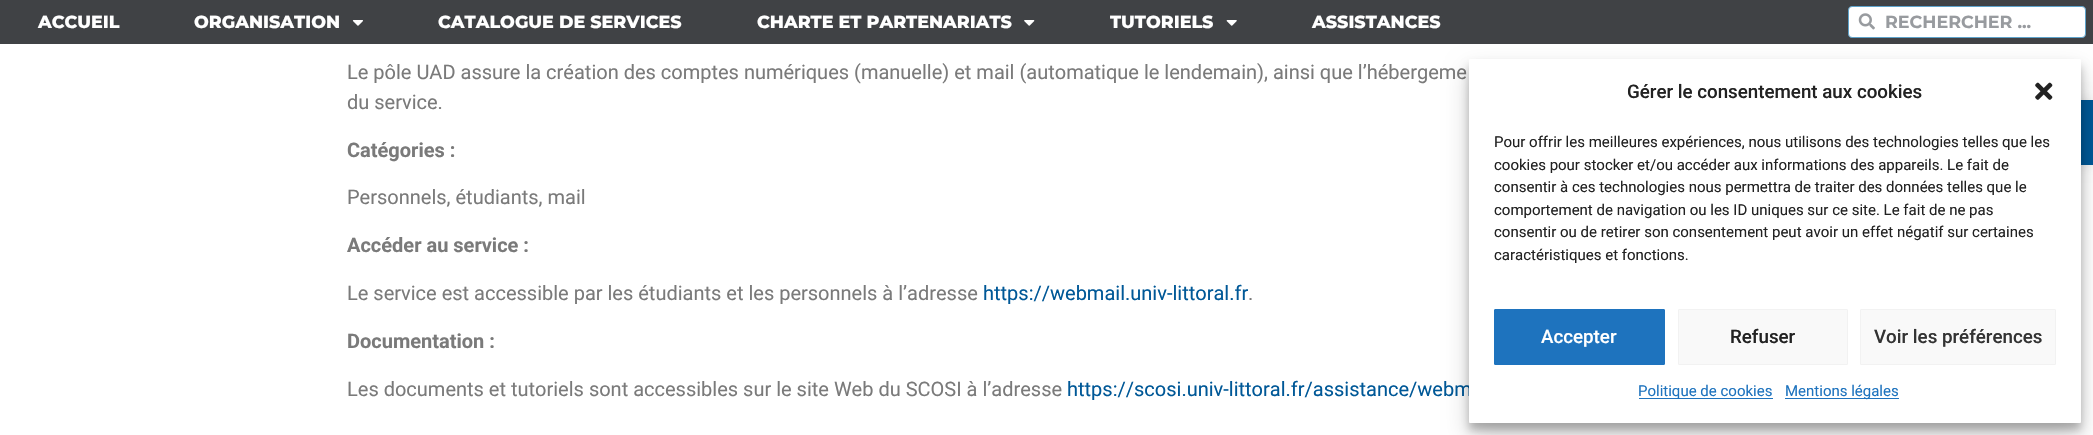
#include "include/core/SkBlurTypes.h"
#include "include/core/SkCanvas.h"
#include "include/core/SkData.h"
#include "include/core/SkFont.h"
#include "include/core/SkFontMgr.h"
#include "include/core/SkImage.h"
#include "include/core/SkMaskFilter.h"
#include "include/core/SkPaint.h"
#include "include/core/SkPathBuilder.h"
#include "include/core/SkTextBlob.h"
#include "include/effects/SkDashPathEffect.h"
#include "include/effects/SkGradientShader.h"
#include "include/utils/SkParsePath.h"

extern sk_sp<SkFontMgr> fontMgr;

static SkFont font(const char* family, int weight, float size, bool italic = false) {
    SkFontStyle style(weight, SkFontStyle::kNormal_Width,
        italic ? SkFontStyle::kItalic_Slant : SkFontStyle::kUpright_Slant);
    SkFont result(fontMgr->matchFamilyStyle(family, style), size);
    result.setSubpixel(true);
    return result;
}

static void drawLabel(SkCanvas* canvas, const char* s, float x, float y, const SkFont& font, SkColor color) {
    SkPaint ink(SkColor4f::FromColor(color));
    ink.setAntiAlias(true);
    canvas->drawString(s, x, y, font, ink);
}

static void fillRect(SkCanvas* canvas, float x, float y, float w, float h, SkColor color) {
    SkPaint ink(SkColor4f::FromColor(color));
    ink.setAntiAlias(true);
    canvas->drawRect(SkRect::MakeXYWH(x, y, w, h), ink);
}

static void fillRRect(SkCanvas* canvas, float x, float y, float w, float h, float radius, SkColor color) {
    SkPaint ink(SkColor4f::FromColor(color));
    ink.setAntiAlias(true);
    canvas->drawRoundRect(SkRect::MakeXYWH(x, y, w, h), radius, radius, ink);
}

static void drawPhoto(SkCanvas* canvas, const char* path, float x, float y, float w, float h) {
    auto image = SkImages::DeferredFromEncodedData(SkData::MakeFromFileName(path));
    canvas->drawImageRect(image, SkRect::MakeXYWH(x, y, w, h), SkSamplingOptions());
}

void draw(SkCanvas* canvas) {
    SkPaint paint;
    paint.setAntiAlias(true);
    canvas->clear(0xFFFFFFFF);
    fillRect(canvas, 0, 0, 2093, 44, 0xFF404245);
    SkFont font1 = font("Montserrat", 800, 17.5f);
    drawLabel(canvas, "ACCUEIL", 38, 28, font1, 0xFFFFFFFF);
    drawLabel(canvas, "ORGANISATION", 194, 28, font1, 0xFFFFFFFF);
    drawPhoto(canvas, "assets/img1.png", 352, 20, 11, 6);
    drawLabel(canvas, "CATALOGUE DE SERVICES", 438, 28, font1, 0xFFFFFFFF);
    drawLabel(canvas, "CHARTE ET PARTENARIATS", 757, 28, font1, 0xFFFFFFFF);
    drawPhoto(canvas, "assets/img2.png", 1024, 20, 11, 6);
    drawLabel(canvas, "TUTORIELS", 1110, 28, font1, 0xFFFFFFFF);
    drawPhoto(canvas, "assets/img3.png", 1226, 20, 11, 6);
    drawLabel(canvas, "ASSISTANCES", 1312, 28, font1, 0xFFFFFFFF);
    paint.setColor(0xFFFFFFFF);
    canvas->drawRoundRect(SkRect::MakeXYWH(1848.5f, 6.5f, 237, 31), 3.5f, 3.5f, paint);
    paint.setStroke(true);
    paint.setStrokeWidth(1);
    paint.setColor(0xFF5EA3CB);
    canvas->drawRoundRect(SkRect::MakeXYWH(1848.5f, 6.5f, 237, 31), 3.5f, 3.5f, paint);
    drawPhoto(canvas, "assets/img4.png", 1858, 13, 17, 17);
    SkFont font2 = font("Montserrat", 700, 17.5f);
    drawLabel(canvas, "RECHERCHER ...", 1885, 28, font2, 0xFF989B9F);
    SkFont font3 = font("Roboto", 400, 20);
    drawLabel(canvas, "Le pôle UAD assure la création des comptes numériques (manuelle) et mail (automatique le lendemain), ainsi que l’hébergeme", 347, 79, font3, 0xFF7A7A7A);
    drawLabel(canvas, "du service.", 347, 109, font3, 0xFF7A7A7A);
    SkFont font4 = font("Roboto", 700, 20);
    drawLabel(canvas, "Catégories :", 347, 157, font4, 0xFF7A7A7A);
    drawLabel(canvas, "Personnels, étudiants, mail", 347, 204, font3, 0xFF7A7A7A);
    drawLabel(canvas, "Accéder au service :", 347, 252, font4, 0xFF7A7A7A);
    drawLabel(canvas, "Le service est accessible par les étudiants et les personnels à l’adresse", 347, 300, font3, 0xFF7A7A7A);
    drawLabel(canvas, "https://webmail.univ-littoral.fr", 983, 300, font3, 0xFF005897);
    drawLabel(canvas, ".", 1248, 300, font3, 0xFF7A7A7A);
    drawLabel(canvas, "Documentation :", 347, 348, font4, 0xFF7A7A7A);
    drawLabel(canvas, "Les documents et tutoriels sont accessibles sur le site Web du SCOSI à l’adresse", 347, 396, font3, 0xFF7A7A7A);
    drawLabel(canvas, "https://scosi.univ-littoral.fr/assistance/webm", 1067, 396, font3, 0xFF005897);
    paint.setStroke(false);
    paint.setColor(0x1A000000);
    paint.setMaskFilter(SkMaskFilter::MakeBlur(kNormal_SkBlurStyle, 6));
    canvas->drawRect(SkRect::MakeXYWH(2029, 100, 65, 65), paint);
    paint.setMaskFilter(nullptr);
    fillRect(canvas, 2081, 100, 12, 65, 0xFF005897);
    paint.setColor(0x3B000000);
    paint.setMaskFilter(SkMaskFilter::MakeBlur(kNormal_SkBlurStyle, 4));
    canvas->drawRoundRect(SkRect::MakeXYWH(1469, 66, 612, 364), 1, 1, paint);
    paint.setMaskFilter(nullptr);
    paint.setColor(0x30000000);
    paint.setMaskFilter(SkMaskFilter::MakeBlur(kNormal_SkBlurStyle, 12.5f));
    canvas->drawRoundRect(SkRect::MakeXYWH(1469, 71, 612, 364), 1, 1, paint);
    paint.setMaskFilter(nullptr);
    fillRRect(canvas, 1469, 59, 612, 364, 1, 0xFFFFFFFF);
    SkFont font5 = font("Roboto", 500, 18.75f);
    drawLabel(canvas, "Gérer le consentement aux cookies", 1627, 98, font5, 0xFF222222);
    drawPhoto(canvas, "assets/img5.png", 2035, 82, 18, 18);
    SkFont font6 = font("Roboto", 400, 15);
    drawLabel(canvas, "Pour offrir les meilleures expériences, nous utilisons des technologies telles que les", 1494, 147, font6, 0xFF222222);
    drawLabel(canvas, "cookies pour stocker et/ou accéder aux informations des appareils. Le fait de", 1494, 170, font6, 0xFF222222);
    drawLabel(canvas, "consentir à ces technologies nous permettra de traiter des données telles que le", 1494, 192, font6, 0xFF222222);
    drawLabel(canvas, "comportement de navigation ou les ID uniques sur ce site. Le fait de ne pas", 1494, 215, font6, 0xFF222222);
    drawLabel(canvas, "consentir ou de retirer son consentement peut avoir un effet négatif sur certaines", 1494, 237, font6, 0xFF222222);
    drawLabel(canvas, "caractéristiques et fonctions.", 1494, 260, font6, 0xFF222222);
    paint.setColor(0xFF1E73BE);
    canvas->drawRoundRect(SkRect::MakeXYWH(1494.5f, 309.5f, 170, 55), 0.5f, 0.5f, paint);
    paint.setStroke(true);
    canvas->drawRoundRect(SkRect::MakeXYWH(1494.5f, 309.5f, 170, 55), 0.5f, 0.5f, paint);
    drawLabel(canvas, "Accepter", 1541, 343, font5, 0xFFFFFFFF);
    paint.setStroke(false);
    paint.setColor(0xFFF9F9F9);
    canvas->drawRoundRect(SkRect::MakeXYWH(1678.5f, 309.5f, 169, 55), 0.5f, 0.5f, paint);
    paint.setStroke(true);
    paint.setColor(0xFFF2F2F2);
    canvas->drawRoundRect(SkRect::MakeXYWH(1678.5f, 309.5f, 169, 55), 0.5f, 0.5f, paint);
    drawLabel(canvas, "Refuser", 1730, 343, font5, 0xFF222222);
    paint.setStroke(false);
    paint.setColor(0xFFF9F9F9);
    canvas->drawRoundRect(SkRect::MakeXYWH(1860.5f, 309.5f, 195, 55), 0.5f, 0.5f, paint);
    paint.setStroke(true);
    paint.setColor(0xFFF2F2F2);
    canvas->drawRoundRect(SkRect::MakeXYWH(1860.5f, 309.5f, 195, 55), 0.5f, 0.5f, paint);
    drawLabel(canvas, "Voir les préférences", 1874, 343, font5, 0xFF333333);
    fillRect(canvas, 1639, 398, 134, 1, 0xFF1E73BE);
    drawLabel(canvas, "Politique de cookies", 1638, 396, font6, 0xFF1E73BE);
    fillRect(canvas, 1785, 398, 114, 1, 0xFF1E73BE);
    drawLabel(canvas, "Mentions légales", 1785, 396, font6, 0xFF1E73BE);
}
